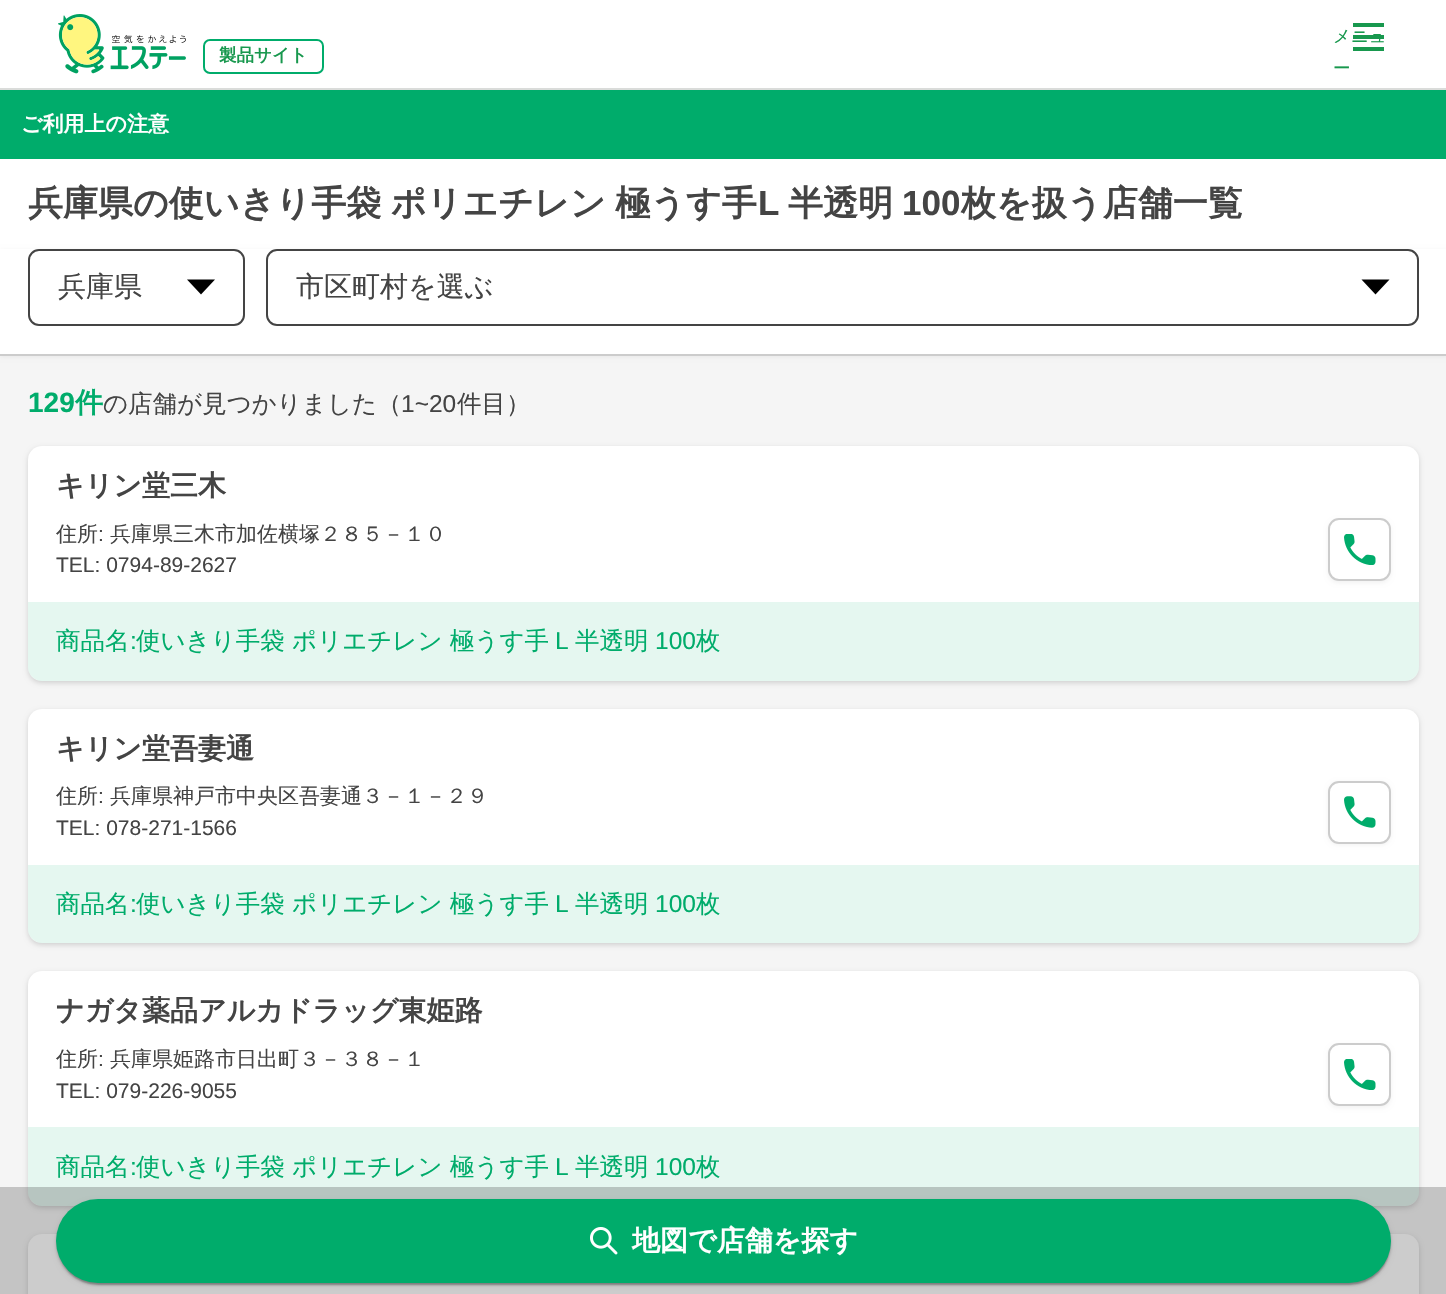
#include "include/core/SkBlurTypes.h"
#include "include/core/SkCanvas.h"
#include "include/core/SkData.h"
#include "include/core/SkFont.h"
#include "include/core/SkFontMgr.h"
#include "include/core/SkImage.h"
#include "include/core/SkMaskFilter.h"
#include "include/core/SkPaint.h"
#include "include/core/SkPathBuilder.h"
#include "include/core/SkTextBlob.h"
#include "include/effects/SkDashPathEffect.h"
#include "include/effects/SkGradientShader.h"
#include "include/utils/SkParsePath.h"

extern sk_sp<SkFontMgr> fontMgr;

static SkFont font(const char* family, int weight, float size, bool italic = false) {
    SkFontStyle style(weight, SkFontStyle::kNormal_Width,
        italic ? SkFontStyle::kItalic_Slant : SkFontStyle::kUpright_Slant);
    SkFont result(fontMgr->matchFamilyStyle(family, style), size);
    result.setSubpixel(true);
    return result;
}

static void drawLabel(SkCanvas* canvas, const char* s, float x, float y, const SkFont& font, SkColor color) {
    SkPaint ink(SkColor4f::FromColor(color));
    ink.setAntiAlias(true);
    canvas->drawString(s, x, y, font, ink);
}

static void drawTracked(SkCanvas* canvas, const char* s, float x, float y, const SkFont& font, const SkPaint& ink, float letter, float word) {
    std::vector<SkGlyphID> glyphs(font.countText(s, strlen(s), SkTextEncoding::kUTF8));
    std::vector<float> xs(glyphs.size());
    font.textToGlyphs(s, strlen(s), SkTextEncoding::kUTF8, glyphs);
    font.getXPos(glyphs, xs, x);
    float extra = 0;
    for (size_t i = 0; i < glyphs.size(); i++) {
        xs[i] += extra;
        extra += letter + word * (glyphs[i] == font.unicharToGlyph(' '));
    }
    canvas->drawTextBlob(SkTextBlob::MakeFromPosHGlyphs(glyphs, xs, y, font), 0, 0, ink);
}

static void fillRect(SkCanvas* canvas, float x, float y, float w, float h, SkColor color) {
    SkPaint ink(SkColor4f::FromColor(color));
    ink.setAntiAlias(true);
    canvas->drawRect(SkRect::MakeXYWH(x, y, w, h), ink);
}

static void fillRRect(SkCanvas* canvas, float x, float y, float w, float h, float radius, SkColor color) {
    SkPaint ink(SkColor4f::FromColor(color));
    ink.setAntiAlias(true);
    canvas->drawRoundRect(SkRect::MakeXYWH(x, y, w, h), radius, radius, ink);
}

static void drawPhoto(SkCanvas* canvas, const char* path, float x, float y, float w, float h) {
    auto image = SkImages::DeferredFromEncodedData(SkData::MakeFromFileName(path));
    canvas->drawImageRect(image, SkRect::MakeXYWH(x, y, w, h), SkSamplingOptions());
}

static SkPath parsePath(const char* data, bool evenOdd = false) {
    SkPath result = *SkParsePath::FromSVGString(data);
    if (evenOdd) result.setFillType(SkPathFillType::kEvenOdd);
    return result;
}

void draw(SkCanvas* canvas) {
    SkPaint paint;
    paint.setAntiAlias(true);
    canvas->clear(0xFFFFFFFF);
    fillRect(canvas, 0, 88, 1446, 2, 0xFFDADCDA);
    drawPhoto(canvas, "assets/img1.png", 58, 14, 128, 60);
    paint.setStroke(true);
    paint.setStrokeWidth(2);
    paint.setColor(0xFF00AC6B);
    canvas->drawRoundRect(SkRect::MakeXYWH(204, 40, 119, 33), 6, 6, paint);
    SkFont font1 = font("WenQuanYi Zen Hei", 700, 17.5f);
    drawLabel(canvas, "製品サイト", 219, 61, font1, 0xFF18984E);
    fillRect(canvas, 1353, 23, 31, 4, 0xFF18984E);
    fillRect(canvas, 1353, 35, 31, 4, 0xFF18984E);
    SkFont font2 = font("WenQuanYi Zen Hei", 500, 17.5f);
    drawLabel(canvas, "メニュ", 1333, 42, font2, 0xFF18984E);
    drawLabel(canvas, "ー", 1333, 74, font2, 0xFF18984E);
    fillRect(canvas, 1353, 47, 31, 4, 0xFF18984E);
    fillRect(canvas, 0, 356, 1446, 938, 0xFFF5F5F5);
    fillRect(canvas, 0, 90, 1446, 69, 0xFF00AC6B);
    SkFont font3 = font("WenQuanYi Zen Hei", 700, 21);
    drawLabel(canvas, "ご利用上の注意", 21, 131, font3, 0xFFFFFFFF);
    SkFont font4 = font("WenQuanYi Zen Hei", 700, 35);
    paint.setStroke(false);
    paint.setColor(0xFF444444);
    drawTracked(canvas, "兵庫県の使いきり手袋 ポリエチレン 極うす手", 28, 215, font4, paint, 0, -1);
    SkFont font5 = font("Liberation Sans", 700, 35);
    drawLabel(canvas, "L", 758, 215, font5, 0xFF444444);
    drawLabel(canvas, "半透明", 788, 215, font4, 0xFF444444);
    drawLabel(canvas, "100", 902, 215, font5, 0xFF444444);
    drawLabel(canvas, "枚を扱う店舗一覧", 961, 215, font4, 0xFF444444);
    paint.setColor(0x0D000000);
    paint.setMaskFilter(SkMaskFilter::MakeBlur(kNormal_SkBlurStyle, 2));
    canvas->drawRect(SkRect::MakeXYWH(0, 250, 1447, 107), paint);
    paint.setMaskFilter(nullptr);
    fillRect(canvas, 0, 249, 1446, 105, 0xFFFFFFFF);
    fillRect(canvas, 0, 354, 1446, 2, 0xFFCCCCCC);
    paint.setStroke(true);
    paint.setColor(0xFF444444);
    canvas->drawRoundRect(SkRect::MakeXYWH(29, 250, 215, 75), 10, 10, paint);
    SkFont font6 = font("WenQuanYi Zen Hei", 500, 28);
    drawLabel(canvas, "兵庫県", 58, 296, font6, 0xFF444444);
    paint.setStroke(false);
    paint.setColor(0xFF000000);
    canvas->drawPath(parsePath("M201 294.5L187 279.5H215Z"), paint);
    paint.setStroke(true);
    paint.setColor(0xFF444444);
    canvas->drawRoundRect(SkRect::MakeXYWH(267, 250, 1151, 75), 10, 10, paint);
    drawLabel(canvas, "市区町村を選ぶ", 296, 296, font6, 0xFF444444);
    paint.setStroke(false);
    paint.setColor(0xFF000000);
    canvas->drawPath(parsePath("M1375.5 294.5L1361.5 279.5H1389.5Z"), paint);
    SkFont font7 = font("Liberation Sans", 700, 28);
    drawLabel(canvas, "129", 28, 412, font7, 0xFF00AC6B);
    SkFont font8 = font("WenQuanYi Zen Hei", 700, 28);
    drawLabel(canvas, "件", 75, 412, font8, 0xFF00AC6B);
    SkFont font9 = font("WenQuanYi Zen Hei", 500, 24.5f);
    drawLabel(canvas, "の店舗が見つかりました（", 103, 412, font9, 0xFF444444);
    SkFont font10 = font("Liberation Sans", 400, 24.5f);
    drawLabel(canvas, "1~20", 401, 412, font10, 0xFF444444);
    drawLabel(canvas, "件目）", 457, 412, font9, 0xFF444444);
    paint.setColor(0x26000000);
    paint.setMaskFilter(SkMaskFilter::MakeBlur(kNormal_SkBlurStyle, 2.5f));
    canvas->drawRoundRect(SkRect::MakeXYWH(28, 448, 1391, 235), 14, 14, paint);
    paint.setMaskFilter(nullptr);
    fillRRect(canvas, 28, 446, 1391, 235, 14, 0xFFFFFFFF);
    drawLabel(canvas, "キリン堂三木", 56, 495, font8, 0xFF444444);
    SkFont font11 = font("WenQuanYi Zen Hei", 500, 21);
    drawLabel(canvas, "住所", 56, 541, font11, 0xFF444444);
    SkFont font12 = font("Liberation Sans", 400, 21);
    drawLabel(canvas, ":", 98, 541, font12, 0xFF444444);
    drawLabel(canvas, "兵庫県三木市加佐横塚２８５－１０", 110, 541, font11, 0xFF444444);
    drawLabel(canvas, "TEL: 0794-89-2627", 56, 572, font12, 0xFF444444);
    paint.setColor(0x0D000000);
    paint.setMaskFilter(SkMaskFilter::MakeBlur(kNormal_SkBlurStyle, 2));
    canvas->drawRoundRect(SkRect::MakeXYWH(1328, 520, 63, 63), 11, 11, paint);
    paint.setMaskFilter(nullptr);
    paint.setColor(0xFFFFFFFF);
    canvas->drawRoundRect(SkRect::MakeXYWH(1329, 519, 61, 61), 10, 10, paint);
    paint.setStroke(true);
    paint.setColor(0xFFCCCCCC);
    canvas->drawRoundRect(SkRect::MakeXYWH(1329, 519, 61, 61), 10, 10, paint);
    drawPhoto(canvas, "assets/img2.png", 1344, 534, 32, 31);
    paint.setStroke(false);
    paint.setColor(0x1A00AC6B);
    canvas->drawPath(parsePath("M28 602H1419V667C1419 674.5 1412.5 681 1405 681H42C34.5 681 28 674.5 28 667Z"), paint);
    drawLabel(canvas, "商品名", 56, 649, font9, 0xFF00AC6B);
    drawLabel(canvas, ":", 130, 649, font10, 0xFF00AC6B);
    drawLabel(canvas, "使いきり手袋 ポリエチレン 極うす手", 136, 649, font9, 0xFF00AC6B);
    drawLabel(canvas, "L", 555, 649, font10, 0xFF00AC6B);
    drawLabel(canvas, "半透明", 575, 649, font9, 0xFF00AC6B);
    drawLabel(canvas, "100", 655, 649, font10, 0xFF00AC6B);
    drawLabel(canvas, "枚", 696, 649, font9, 0xFF00AC6B);
    paint.setColor(0x26000000);
    paint.setMaskFilter(SkMaskFilter::MakeBlur(kNormal_SkBlurStyle, 2.5f));
    canvas->drawRoundRect(SkRect::MakeXYWH(28, 711, 1391, 234), 14, 14, paint);
    paint.setMaskFilter(nullptr);
    fillRRect(canvas, 28, 709, 1391, 234, 14, 0xFFFFFFFF);
    drawLabel(canvas, "キリン堂吾妻通", 56, 758, font8, 0xFF444444);
    drawLabel(canvas, "住所", 56, 803, font11, 0xFF444444);
    drawLabel(canvas, ":", 98, 803, font12, 0xFF444444);
    drawLabel(canvas, "兵庫県神戸市中央区吾妻通３－１－２９", 110, 803, font11, 0xFF444444);
    drawLabel(canvas, "TEL: 078-271-1566", 56, 835, font12, 0xFF444444);
    paint.setColor(0x0D000000);
    paint.setMaskFilter(SkMaskFilter::MakeBlur(kNormal_SkBlurStyle, 2));
    canvas->drawRoundRect(SkRect::MakeXYWH(1328, 782, 63, 63), 11, 11, paint);
    paint.setMaskFilter(nullptr);
    paint.setColor(0xFFFFFFFF);
    canvas->drawRoundRect(SkRect::MakeXYWH(1329, 782, 61, 61), 10, 10, paint);
    paint.setStroke(true);
    paint.setColor(0xFFCCCCCC);
    canvas->drawRoundRect(SkRect::MakeXYWH(1329, 782, 61, 61), 10, 10, paint);
    drawPhoto(canvas, "assets/img3.png", 1344, 796, 32, 32);
    paint.setStroke(false);
    paint.setColor(0x1A00AC6B);
    canvas->drawPath(parsePath("M28 865H1419V929C1419 936.5 1412.5 943 1405 943H42C34.5 943 28 936.5 28 929Z"), paint);
    drawLabel(canvas, "商品名", 56, 912, font9, 0xFF00AC6B);
    drawLabel(canvas, ":", 130, 912, font10, 0xFF00AC6B);
    drawLabel(canvas, "使いきり手袋 ポリエチレン 極うす手", 136, 912, font9, 0xFF00AC6B);
    drawLabel(canvas, "L", 555, 912, font10, 0xFF00AC6B);
    drawLabel(canvas, "半透明", 575, 912, font9, 0xFF00AC6B);
    drawLabel(canvas, "100", 655, 912, font10, 0xFF00AC6B);
    drawLabel(canvas, "枚", 696, 912, font9, 0xFF00AC6B);
    paint.setColor(0x26000000);
    paint.setMaskFilter(SkMaskFilter::MakeBlur(kNormal_SkBlurStyle, 2.5f));
    canvas->drawRoundRect(SkRect::MakeXYWH(28, 973, 1391, 235), 14, 14, paint);
    paint.setMaskFilter(nullptr);
    fillRRect(canvas, 28, 971, 1391, 235, 14, 0xFFFFFFFF);
    drawLabel(canvas, "ナガタ薬品アルカドラッグ東姫路", 56, 1020, font8, 0xFF444444);
    drawLabel(canvas, "住所", 56, 1066, font11, 0xFF444444);
    drawLabel(canvas, ":", 98, 1066, font12, 0xFF444444);
    drawLabel(canvas, "兵庫県姫路市日出町３－３８－１", 110, 1066, font11, 0xFF444444);
    drawLabel(canvas, "TEL: 079-226-9055", 56, 1098, font12, 0xFF444444);
    paint.setColor(0x0D000000);
    paint.setMaskFilter(SkMaskFilter::MakeBlur(kNormal_SkBlurStyle, 2));
    canvas->drawRoundRect(SkRect::MakeXYWH(1328, 1045, 63, 63), 11, 11, paint);
    paint.setMaskFilter(nullptr);
    paint.setColor(0xFFFFFFFF);
    canvas->drawRoundRect(SkRect::MakeXYWH(1329, 1044, 61, 61), 10, 10, paint);
    paint.setStroke(true);
    paint.setColor(0xFFCCCCCC);
    canvas->drawRoundRect(SkRect::MakeXYWH(1329, 1044, 61, 61), 10, 10, paint);
    drawPhoto(canvas, "assets/img2.png", 1344, 1059, 32, 31);
    paint.setStroke(false);
    paint.setColor(0x1A00AC6B);
    canvas->drawPath(parsePath("M28 1127H1419V1192C1419 1199.5 1412.5 1206 1405 1206H42C34.5 1206 28 1199.5 28 1192Z"), paint);
    drawLabel(canvas, "商品名", 56, 1175, font9, 0xFF00AC6B);
    drawLabel(canvas, ":", 130, 1175, font10, 0xFF00AC6B);
    drawLabel(canvas, "使いきり手袋 ポリエチレン 極うす手", 136, 1175, font9, 0xFF00AC6B);
    drawLabel(canvas, "L", 555, 1175, font10, 0xFF00AC6B);
    drawLabel(canvas, "半透明", 575, 1175, font9, 0xFF00AC6B);
    drawLabel(canvas, "100", 655, 1175, font10, 0xFF00AC6B);
    drawLabel(canvas, "枚", 696, 1175, font9, 0xFF00AC6B);
    paint.setColor(0x26000000);
    paint.setMaskFilter(SkMaskFilter::MakeBlur(kNormal_SkBlurStyle, 2.5f));
    canvas->drawRoundRect(SkRect::MakeXYWH(28, 1236, 1391, 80), 14, 14, paint);
    paint.setMaskFilter(nullptr);
    fillRRect(canvas, 28, 1234, 1391, 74, 14, 0xFFFFFFFF);
    fillRect(canvas, 0, 1187, 1446, 107, 0x33000000);
    paint.setColor(0x1F000000);
    paint.setMaskFilter(SkMaskFilter::MakeBlur(kNormal_SkBlurStyle, 2.5f));
    canvas->drawRoundRect(SkRect::MakeXYWH(56, 1201, 1335, 84), 42, 42, paint);
    paint.setMaskFilter(nullptr);
    paint.setColor(0x24000000);
    paint.setMaskFilter(SkMaskFilter::MakeBlur(kNormal_SkBlurStyle, 1));
    canvas->drawRoundRect(SkRect::MakeXYWH(56, 1201, 1335, 84), 42, 42, paint);
    paint.setMaskFilter(nullptr);
    paint.setColor(0x33000000);
    paint.setMaskFilter(SkMaskFilter::MakeBlur(kNormal_SkBlurStyle, 1));
    canvas->drawRoundRect(SkRect::MakeXYWH(58, 1204, 1332, 81), 40.5f, 40.5f, paint);
    paint.setMaskFilter(nullptr);
    fillRRect(canvas, 56, 1199, 1335, 84, 42, 0xFF00AC6B);
    drawPhoto(canvas, "assets/img4.png", 590, 1227, 28, 28);
    drawLabel(canvas, "地図で店舗を探す", 632, 1250, font8, 0xFFFFFFFF);
}
